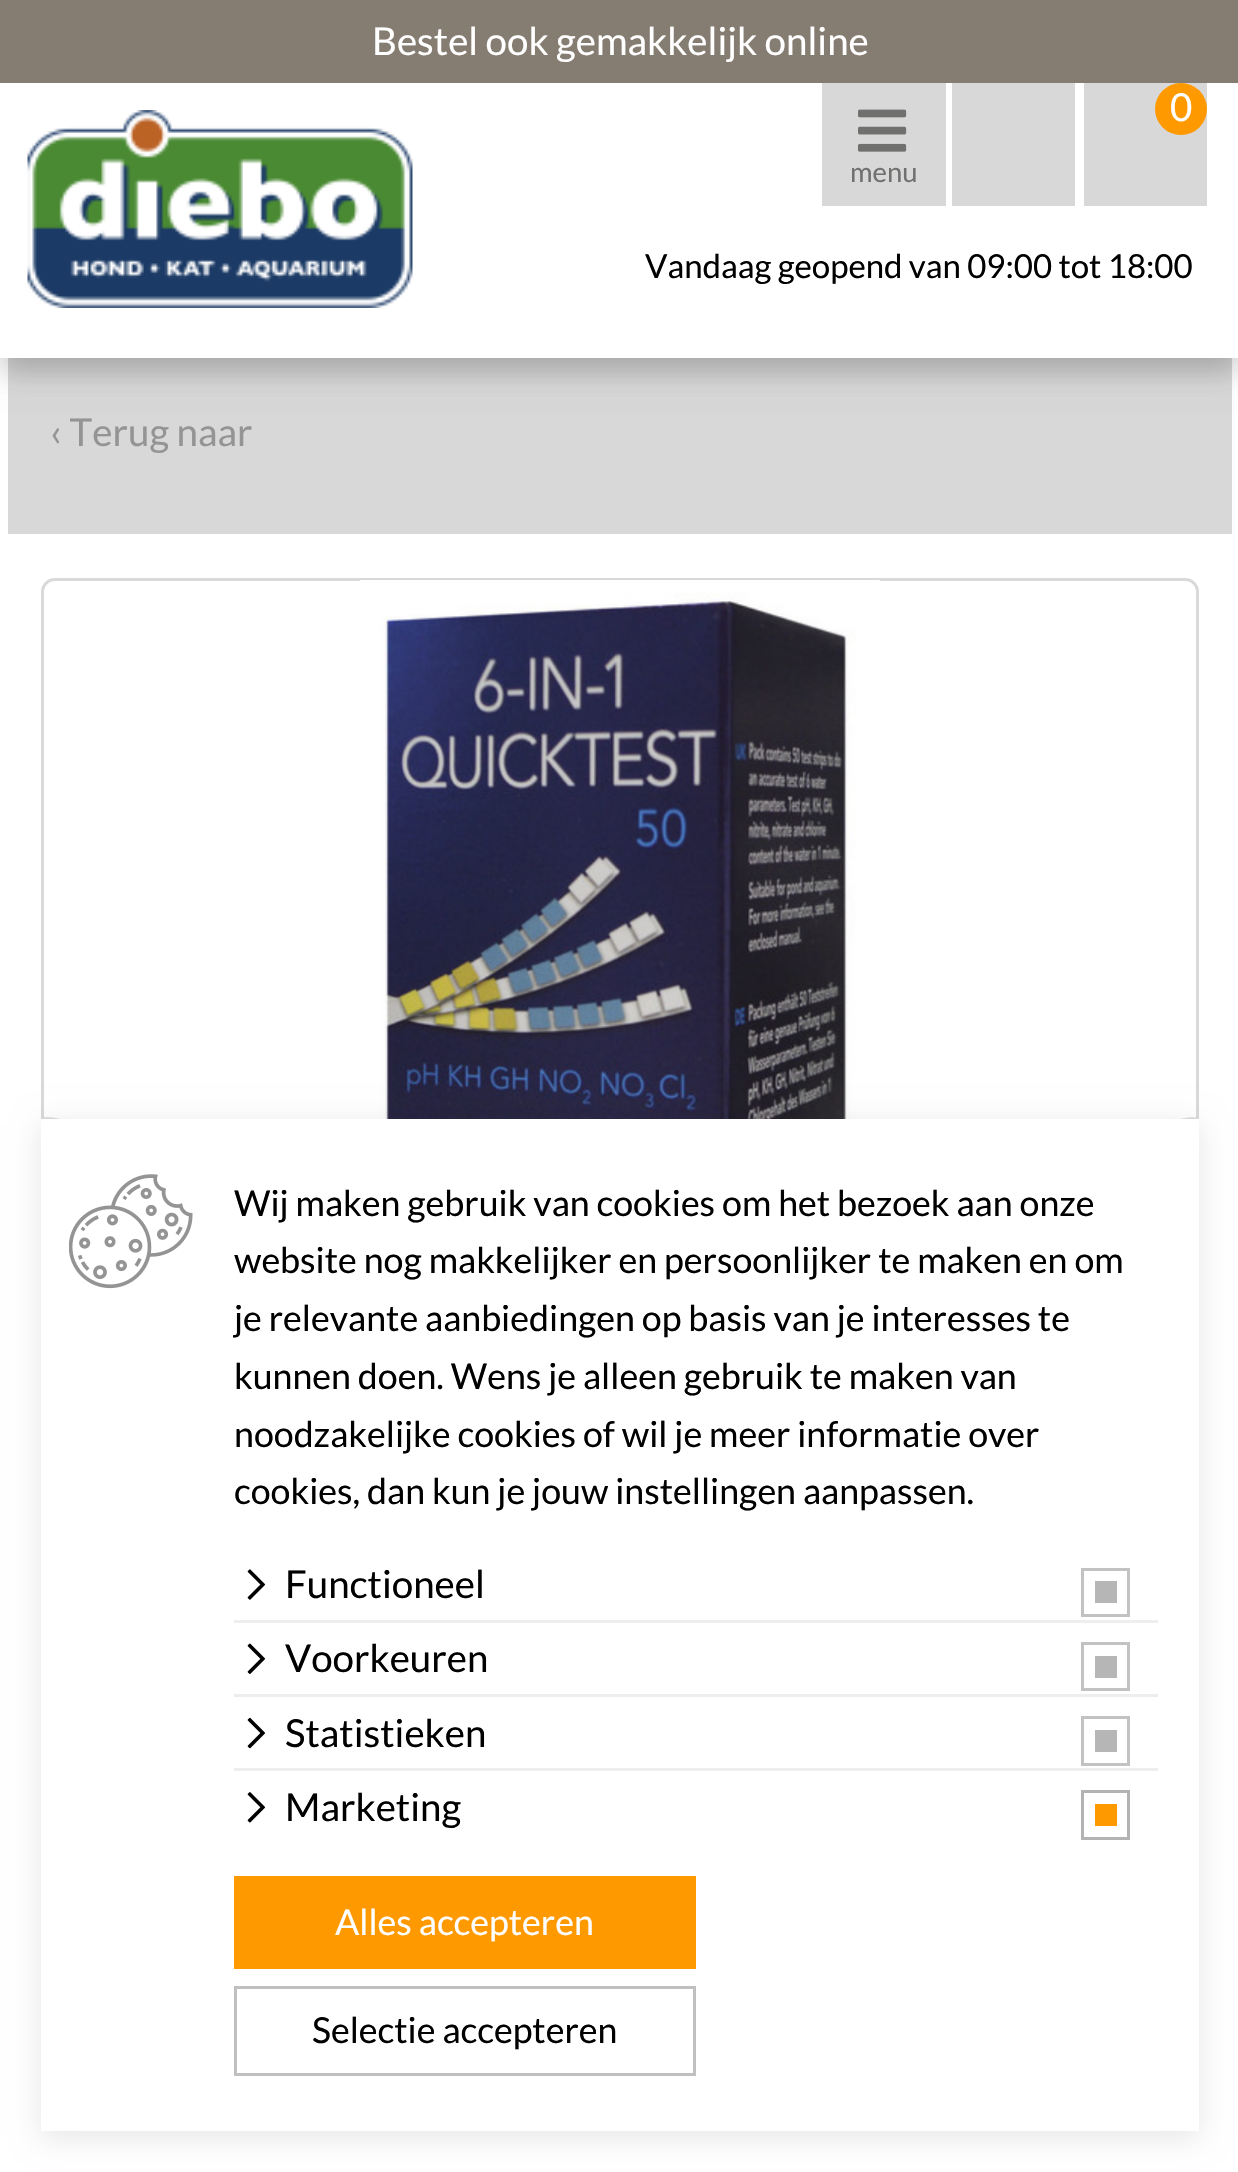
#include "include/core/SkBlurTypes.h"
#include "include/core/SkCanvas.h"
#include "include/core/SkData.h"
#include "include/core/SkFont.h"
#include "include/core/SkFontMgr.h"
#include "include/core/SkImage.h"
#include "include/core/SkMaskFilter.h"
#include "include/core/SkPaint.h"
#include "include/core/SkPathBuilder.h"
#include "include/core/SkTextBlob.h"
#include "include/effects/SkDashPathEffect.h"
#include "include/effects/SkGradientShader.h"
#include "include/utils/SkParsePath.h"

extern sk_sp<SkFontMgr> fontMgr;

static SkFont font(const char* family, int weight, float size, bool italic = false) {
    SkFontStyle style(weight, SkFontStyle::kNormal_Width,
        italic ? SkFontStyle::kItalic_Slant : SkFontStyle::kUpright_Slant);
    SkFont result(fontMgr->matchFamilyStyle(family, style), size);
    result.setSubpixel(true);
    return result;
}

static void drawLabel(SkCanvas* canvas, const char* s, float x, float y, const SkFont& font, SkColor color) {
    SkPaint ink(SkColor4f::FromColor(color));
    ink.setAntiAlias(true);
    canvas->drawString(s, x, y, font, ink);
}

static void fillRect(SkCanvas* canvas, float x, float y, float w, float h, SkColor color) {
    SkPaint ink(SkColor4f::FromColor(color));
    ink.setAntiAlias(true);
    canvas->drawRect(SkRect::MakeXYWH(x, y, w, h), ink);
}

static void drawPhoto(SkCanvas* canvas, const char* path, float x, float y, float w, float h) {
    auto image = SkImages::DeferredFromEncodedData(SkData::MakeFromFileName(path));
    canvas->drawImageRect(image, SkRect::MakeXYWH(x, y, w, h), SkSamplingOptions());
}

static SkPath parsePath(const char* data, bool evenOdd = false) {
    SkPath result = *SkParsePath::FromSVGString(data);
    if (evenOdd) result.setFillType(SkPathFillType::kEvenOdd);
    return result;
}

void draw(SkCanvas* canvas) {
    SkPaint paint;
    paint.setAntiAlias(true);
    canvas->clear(0xFFFFFFFF);
    fillRect(canvas, 8, 358, 1224, 176, 0xFFD8D8D8);
    paint.setColor(0x1F000000);
    paint.setMaskFilter(SkMaskFilter::MakeBlur(kNormal_SkBlurStyle, 14));
    canvas->drawRect(SkRect::MakeXYWH(0, 14, 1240, 357), paint);
    paint.setMaskFilter(nullptr);
    fillRect(canvas, 0, 83, 1238, 275, 0xFFFFFFFF);
    canvas->save();
    canvas->clipPath(parsePath("M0 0H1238V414H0ZM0 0H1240V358H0Z", true), true);
    paint.setMaskFilter(SkMaskFilter::MakeBlur(kNormal_SkBlurStyle, 14));
    canvas->drawRect(SkRect::MakeXYWH(0, 14, 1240, 357), paint);
    paint.setMaskFilter(nullptr);
    canvas->restore();
    fillRect(canvas, 0, 0, 1238, 83, 0xFF867D72);
    SkFont font1 = font("Lato", 400, 38.5f);
    drawLabel(canvas, "Bestel ook gemakkelijk online", 372, 55, font1, 0xFFFFFFFF);
    drawPhoto(canvas, "assets/img1.png", 27, 110, 386, 198);
    fillRect(canvas, 952, 83, 123, 123, 0xFFD8D8D8);
    fillRect(canvas, 1084, 83, 123, 123, 0xFFD8D8D8);
    paint.setColor(0xFFFF9900);
    canvas->drawCircle(1181, 109, 26, paint);
    drawLabel(canvas, "0", 1170, 121, font1, 0xFFFFFFFF);
    fillRect(canvas, 822, 83, 124, 123, 0xFFD8D8D8);
    drawPhoto(canvas, "assets/img2.png", 858, 109, 49, 43);
    SkFont font2 = font("Lato", 400, 27.5f);
    drawLabel(canvas, "menu", 850, 182, font2, 0xFF70706F);
    SkFont font3 = font("Lato", 400, 33);
    drawLabel(canvas, "Vandaag geopend van 09:00 tot 18:00", 645, 278, font3, 0xFF000000);
    drawLabel(canvas, "‹ Terug naar", 50, 446, font1, 0xFF949494);
    paint.setStroke(true);
    paint.setStrokeWidth(3);
    paint.setColor(0xFFD9D9D9);
    canvas->drawRoundRect(SkRect::MakeXYWH(42.5f, 579.5f, 1155, 1212), 12.5f, 12.5f, paint);
    drawPhoto(canvas, "assets/img3.png", 360, 580, 520, 539);
    paint.setStroke(false);
    paint.setColor(0xFFDEDEDE);
    canvas->drawPath(parsePath("M44 1117H44.5C82.5 1117 113 1147.5 113 1185.5C113 1223.5 82.5 1254 44.5 1254H44Z"), paint);
    canvas->drawPath(parsePath("M1196.5 1117H1196V1254H1196.5C1158.5 1254 1128 1223.5 1128 1185.5C1128 1147.5 1158.5 1117 1196.5 1117Z"), paint);
    paint.setColor(0x1A000000);
    paint.setMaskFilter(SkMaskFilter::MakeBlur(kNormal_SkBlurStyle, 14));
    canvas->drawRect(SkRect::MakeXYWH(41, 1125, 1158, 1012), paint);
    paint.setMaskFilter(nullptr);
    fillRect(canvas, 41, 1119, 1158, 1012, 0xFFFFFFFF);
    drawPhoto(canvas, "assets/img4.png", 69, 1174, 124, 115);
    SkFont font4 = font("Lato", 400, 35.75f);
    drawLabel(canvas, "Wij maken gebruik van cookies om het bezoek aan onze", 234, 1216, font4, 0xFF000000);
    drawLabel(canvas, "website nog makkelijker en persoonlijker te maken en om", 234, 1273, font4, 0xFF000000);
    drawLabel(canvas, "je relevante aanbiedingen op basis van je interesses te", 234, 1331, font4, 0xFF000000);
    drawLabel(canvas, "kunnen doen. Wens je alleen gebruik te maken van", 234, 1389, font4, 0xFF000000);
    drawLabel(canvas, "noodzakelijke cookies of wil je meer informatie over", 234, 1447, font4, 0xFF000000);
    drawLabel(canvas, "cookies, dan kun je jouw instellingen aanpassen.", 234, 1504, font4, 0xFF000000);
    drawPhoto(canvas, "assets/img5.png", 247, 1569, 19, 31);
    drawLabel(canvas, "Functioneel", 285, 1598, font1, 0xFF000000);
    paint.setStroke(true);
    paint.setColor(0xFFC2C2C2);
    canvas->drawRect(SkRect::MakeXYWH(1082.5f, 1569.5f, 46, 46), paint);
    fillRect(canvas, 1095, 1581, 22, 22, 0xFFB6B6B6);
    fillRect(canvas, 234, 1620, 924, 3, 0xFFEEEEEE);
    drawPhoto(canvas, "assets/img6.png", 247, 1643, 19, 31);
    drawLabel(canvas, "Voorkeuren", 285, 1672, font1, 0xFF000000);
    canvas->drawRect(SkRect::MakeXYWH(1082.5f, 1643.5f, 46, 46), paint);
    fillRect(canvas, 1095, 1656, 22, 22, 0xFFB6B6B6);
    fillRect(canvas, 234, 1694, 924, 3, 0xFFEEEEEE);
    drawPhoto(canvas, "assets/img7.png", 247, 1717, 19, 32);
    drawLabel(canvas, "Statistieken", 285, 1747, font1, 0xFF000000);
    canvas->drawRect(SkRect::MakeXYWH(1082.5f, 1717.5f, 46, 47), paint);
    fillRect(canvas, 1095, 1730, 22, 22, 0xFFB6B6B6);
    fillRect(canvas, 234, 1768, 924, 3, 0xFFEEEEEE);
    drawPhoto(canvas, "assets/img8.png", 247, 1792, 19, 31);
    drawLabel(canvas, "Marketing", 285, 1821, font1, 0xFF000000);
    paint.setColor(0xFFB3B3B3);
    canvas->drawRect(SkRect::MakeXYWH(1082.5f, 1791.5f, 46, 47), paint);
    fillRect(canvas, 1095, 1804, 22, 22, 0xFFFF9900);
    fillRect(canvas, 234, 1876, 462, 93, 0xFFFF9900);
    drawLabel(canvas, "Alles accepteren", 335, 1935, font4, 0xFFFFFFFF);
    paint.setColor(0xFFC0C0C0);
    canvas->drawRect(SkRect::MakeXYWH(235.5f, 1987.5f, 459, 87), paint);
    drawLabel(canvas, "Selectie accepteren", 312, 2043, font4, 0xFF000000);
}
